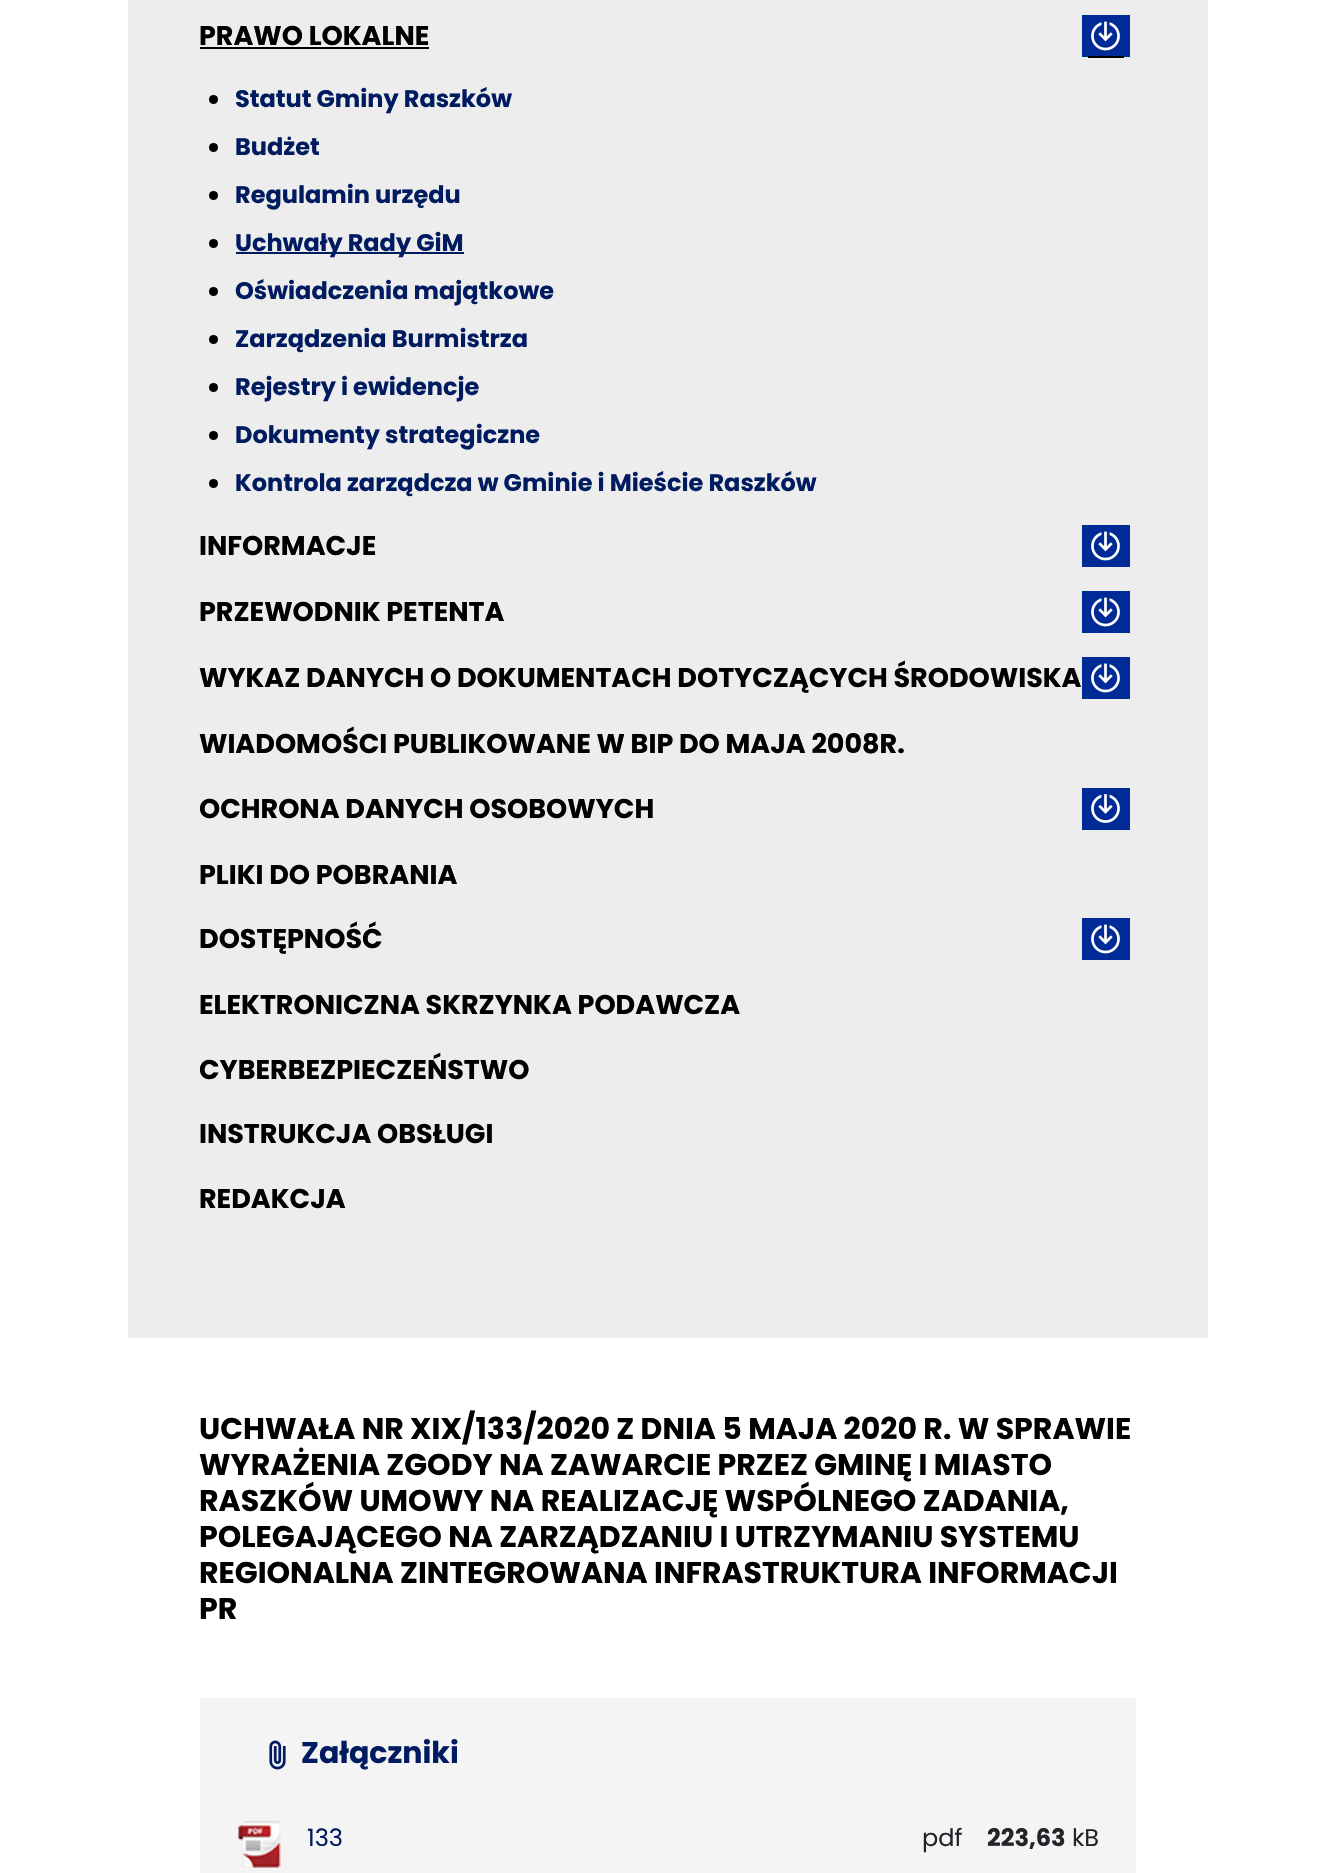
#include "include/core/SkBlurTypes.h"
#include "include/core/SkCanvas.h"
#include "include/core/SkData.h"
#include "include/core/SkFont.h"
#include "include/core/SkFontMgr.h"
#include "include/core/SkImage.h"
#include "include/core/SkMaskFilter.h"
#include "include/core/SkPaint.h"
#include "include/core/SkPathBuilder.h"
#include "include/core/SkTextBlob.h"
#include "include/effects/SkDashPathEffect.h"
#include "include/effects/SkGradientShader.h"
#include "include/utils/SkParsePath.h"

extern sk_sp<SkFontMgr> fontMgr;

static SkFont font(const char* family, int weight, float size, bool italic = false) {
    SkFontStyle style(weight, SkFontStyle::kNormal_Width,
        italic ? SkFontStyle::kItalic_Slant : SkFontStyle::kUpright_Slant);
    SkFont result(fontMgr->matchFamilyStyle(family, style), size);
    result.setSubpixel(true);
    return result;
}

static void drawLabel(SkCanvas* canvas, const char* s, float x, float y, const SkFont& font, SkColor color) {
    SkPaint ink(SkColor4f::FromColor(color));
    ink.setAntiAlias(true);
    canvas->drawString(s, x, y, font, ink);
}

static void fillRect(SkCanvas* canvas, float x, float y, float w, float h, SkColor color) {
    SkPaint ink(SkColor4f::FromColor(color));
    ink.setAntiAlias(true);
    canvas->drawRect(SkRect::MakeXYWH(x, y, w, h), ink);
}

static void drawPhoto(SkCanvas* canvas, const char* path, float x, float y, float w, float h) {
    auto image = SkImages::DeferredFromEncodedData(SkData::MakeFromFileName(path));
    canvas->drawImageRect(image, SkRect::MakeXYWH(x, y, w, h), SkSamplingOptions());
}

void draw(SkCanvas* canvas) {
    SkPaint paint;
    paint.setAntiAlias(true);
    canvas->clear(0xFFFFFFFF);
    fillRect(canvas, 128, 0, 1080, 1338, 0xFFEDEDED);
    SkFont font1 = font("Poppins", 700, 27);
    drawLabel(canvas, "PRAWO LOKALNE", 199, 45, font1, 0xFF000000);
    fillRect(canvas, 200, 47, 229, 2, 0xFF000000);
    fillRect(canvas, 1082, 15, 48, 42, 0xFF002A95);
    fillRect(canvas, 1088, 56, 36, 2, 0xFF000000);
    drawPhoto(canvas, "assets/img1.png", 1091, 21, 29, 30);
    paint.setColor(0xFF000000);
    canvas->drawCircle(213.5f, 99.5f, 4.5f, paint);
    SkFont font2 = font("Poppins", 700, 24);
    drawLabel(canvas, "Statut Gminy Raszków", 235, 107, font2, 0xFF001B60);
    canvas->drawCircle(213.5f, 147.5f, 4.5f, paint);
    drawLabel(canvas, "Budżet", 235, 155, font2, 0xFF001B60);
    canvas->drawCircle(213.5f, 195.5f, 4.5f, paint);
    drawLabel(canvas, "Regulamin urzędu", 235, 203, font2, 0xFF001B60);
    canvas->drawCircle(213.5f, 243.5f, 4.5f, paint);
    fillRect(canvas, 236, 252, 228, 2, 0xFF001B60);
    drawLabel(canvas, "Uchwały Rady GiM", 235, 251, font2, 0xFF001B60);
    canvas->drawCircle(213.5f, 291.5f, 4.5f, paint);
    drawLabel(canvas, "Oświadczenia majątkowe", 235, 299, font2, 0xFF001B60);
    canvas->drawCircle(213.5f, 339.5f, 4.5f, paint);
    drawLabel(canvas, "Zarządzenia Burmistrza", 235, 347, font2, 0xFF001B60);
    canvas->drawCircle(213.5f, 387.5f, 4.5f, paint);
    drawLabel(canvas, "Rejestry i ewidencje", 235, 395, font2, 0xFF001B60);
    canvas->drawCircle(213.5f, 435.5f, 4.5f, paint);
    drawLabel(canvas, "Dokumenty strategiczne", 235, 443, font2, 0xFF001B60);
    canvas->drawCircle(213.5f, 483.5f, 4.5f, paint);
    drawLabel(canvas, "Kontrola zarządcza w Gminie i Mieście Raszków", 235, 491, font2, 0xFF001B60);
    drawLabel(canvas, "INFORMACJE", 199, 555, font1, 0xFF000000);
    fillRect(canvas, 1082, 525, 48, 42, 0xFF002A95);
    drawPhoto(canvas, "assets/img1.png", 1091, 531, 29, 30);
    drawLabel(canvas, "PRZEWODNIK PETENTA", 199, 621, font1, 0xFF000000);
    fillRect(canvas, 1082, 591, 48, 42, 0xFF002A95);
    drawPhoto(canvas, "assets/img1.png", 1091, 597, 29, 30);
    drawLabel(canvas, "WYKAZ DANYCH O DOKUMENTACH DOTYCZĄCYCH ŚRODOWISKA", 199, 687, font1, 0xFF000000);
    fillRect(canvas, 1082, 657, 48, 42, 0xFF002A95);
    drawPhoto(canvas, "assets/img1.png", 1091, 663, 29, 30);
    drawLabel(canvas, "WIADOMOŚCI PUBLIKOWANE W BIP DO MAJA 2008R.", 199, 753, font1, 0xFF000000);
    drawLabel(canvas, "OCHRONA DANYCH OSOBOWYCH", 199, 818, font1, 0xFF000000);
    fillRect(canvas, 1082, 788, 48, 42, 0xFF002A95);
    drawPhoto(canvas, "assets/img2.png", 1091, 794, 29, 29);
    drawLabel(canvas, "PLIKI DO POBRANIA", 199, 884, font1, 0xFF000000);
    drawLabel(canvas, "DOSTĘPNOŚĆ", 199, 948, font1, 0xFF000000);
    fillRect(canvas, 1082, 918, 48, 42, 0xFF002A95);
    drawPhoto(canvas, "assets/img1.png", 1091, 924, 29, 30);
    drawLabel(canvas, "ELEKTRONICZNA SKRZYNKA PODAWCZA", 199, 1014, font1, 0xFF000000);
    drawLabel(canvas, "CYBERBEZPIECZEŃSTWO", 199, 1079, font1, 0xFF000000);
    drawLabel(canvas, "INSTRUKCJA OBSŁUGI", 199, 1143, font1, 0xFF000000);
    drawLabel(canvas, "REDAKCJA", 199, 1208, font1, 0xFF000000);
    SkFont font3 = font("Poppins", 700, 30);
    drawLabel(canvas, "UCHWAŁA NR XIX/133/2020 Z DNIA 5 MAJA 2020 R. W SPRAWIE", 199, 1439, font3, 0xFF000000);
    drawLabel(canvas, "WYRAŻENIA ZGODY NA ZAWARCIE PRZEZ GMINĘ I MIASTO", 199, 1475, font3, 0xFF000000);
    drawLabel(canvas, "RASZKÓW UMOWY NA REALIZACJĘ WSPÓLNEGO ZADANIA,", 199, 1511, font3, 0xFF000000);
    drawLabel(canvas, "POLEGAJĄCEGO NA ZARZĄDZANIU I UTRZYMANIU SYSTEMU", 199, 1547, font3, 0xFF000000);
    drawLabel(canvas, "REGIONALNA ZINTEGROWANA INFRASTRUKTURA INFORMACJI", 199, 1583, font3, 0xFF000000);
    drawLabel(canvas, "PR", 199, 1619, font3, 0xFF000000);
    fillRect(canvas, 200, 1698, 936, 175, 0xFFF4F4F4);
    drawPhoto(canvas, "assets/img3.png", 269, 1740, 17, 30);
    drawLabel(canvas, "Załączniki", 301, 1763, font3, 0xFF001B60);
    drawPhoto(canvas, "assets/img4.png", 238, 1821, 43, 47);
    SkFont font4 = font("Poppins", 400, 24);
    drawLabel(canvas, "133", 307, 1846, font4, 0xFF001B60);
    drawLabel(canvas, "pdf", 922, 1846, font4, 0xFF212529);
    drawLabel(canvas, "223,63", 987, 1846, font2, 0xFF212529);
    drawLabel(canvas, "kB", 1072, 1846, font4, 0xFF212529);
}
